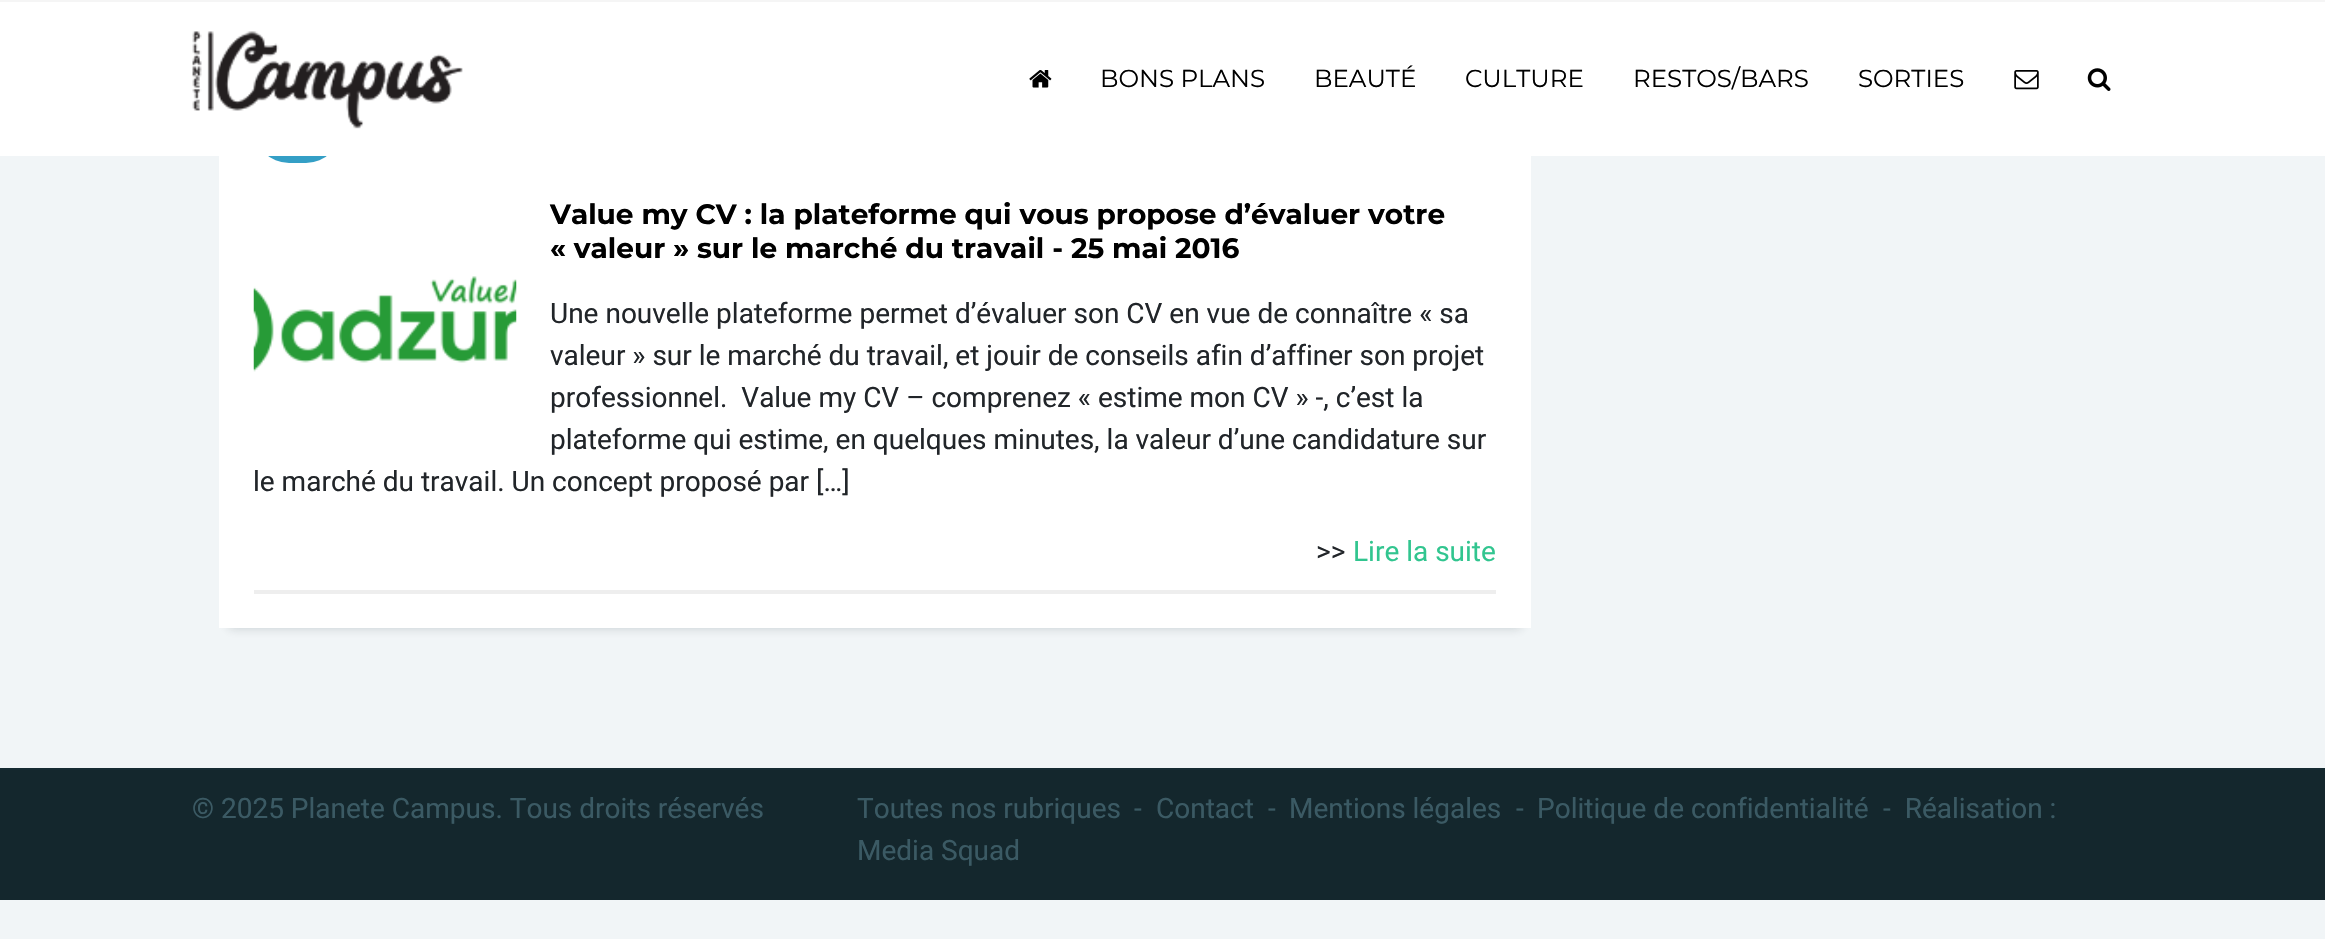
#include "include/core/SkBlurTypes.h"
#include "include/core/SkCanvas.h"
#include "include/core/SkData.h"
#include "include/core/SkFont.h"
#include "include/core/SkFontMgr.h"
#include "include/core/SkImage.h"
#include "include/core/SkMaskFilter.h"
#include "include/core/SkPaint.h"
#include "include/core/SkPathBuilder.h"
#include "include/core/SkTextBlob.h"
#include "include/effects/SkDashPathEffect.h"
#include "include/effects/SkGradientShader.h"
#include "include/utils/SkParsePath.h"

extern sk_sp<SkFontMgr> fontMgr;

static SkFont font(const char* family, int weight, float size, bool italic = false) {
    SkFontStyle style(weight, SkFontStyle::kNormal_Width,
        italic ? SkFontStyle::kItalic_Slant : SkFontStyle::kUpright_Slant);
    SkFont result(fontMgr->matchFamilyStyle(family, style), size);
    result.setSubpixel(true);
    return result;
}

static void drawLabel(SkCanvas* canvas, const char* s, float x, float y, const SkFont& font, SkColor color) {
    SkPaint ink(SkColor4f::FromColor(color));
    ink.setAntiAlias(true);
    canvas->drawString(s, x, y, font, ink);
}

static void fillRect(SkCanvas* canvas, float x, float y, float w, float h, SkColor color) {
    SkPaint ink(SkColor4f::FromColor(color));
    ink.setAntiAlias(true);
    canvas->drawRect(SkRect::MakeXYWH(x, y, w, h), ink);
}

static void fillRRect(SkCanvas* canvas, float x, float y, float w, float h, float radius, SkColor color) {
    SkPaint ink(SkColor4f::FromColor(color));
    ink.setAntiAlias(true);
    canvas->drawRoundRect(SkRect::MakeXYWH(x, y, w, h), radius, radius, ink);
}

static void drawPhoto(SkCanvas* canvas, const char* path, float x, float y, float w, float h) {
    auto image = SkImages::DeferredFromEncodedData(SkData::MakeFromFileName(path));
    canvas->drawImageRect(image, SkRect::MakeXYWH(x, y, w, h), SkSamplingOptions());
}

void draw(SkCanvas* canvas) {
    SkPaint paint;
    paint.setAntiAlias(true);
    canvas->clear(0xFFF1F5F7);
    paint.setColor(0x3316212C);
    paint.setMaskFilter(SkMaskFilter::MakeBlur(kNormal_SkBlurStyle, 5));
    canvas->drawRect(SkRect::MakeXYWH(229, 74, 1292, 554), paint);
    paint.setMaskFilter(nullptr);
    fillRect(canvas, 219, 156, 1312, 472, 0xFFFFFFFF);
    fillRRect(canvas, 254, 79, 87, 84, 35, 0xFF349FC6);
    fillRect(canvas, 0, 2, 2325, 154, 0xFFFFFFFF);
    fillRect(canvas, 0, 0, 2325, 2, 0xFFF5F5F5);
    drawPhoto(canvas, "assets/img1.png", 192, 31, 271, 98);
    drawPhoto(canvas, "assets/img2.png", 1029, 70, 23, 18);
    SkFont font1 = font("Montserrat", 400, 24.5f);
    drawLabel(canvas, "BONS PLANS", 1100, 87, font1, 0xFF000000);
    drawLabel(canvas, "BEAUTÉ", 1314, 87, font1, 0xFF000000);
    drawLabel(canvas, "CULTURE", 1465, 87, font1, 0xFF000000);
    drawLabel(canvas, "RESTOS/BARS", 1633, 87, font1, 0xFF000000);
    drawLabel(canvas, "SORTIES", 1858, 87, font1, 0xFF000000);
    drawPhoto(canvas, "assets/img3.png", 2014, 70, 25, 20);
    drawPhoto(canvas, "assets/img4.png", 2087, 68, 24, 23);
    fillRect(canvas, 254, 590, 1242, 4, 0xFFEEEEEE);
    SkFont font2 = font("Montserrat", 700, 28);
    drawLabel(canvas, "Value my CV : la plateforme qui vous propose d’évaluer votre", 550, 224, font2, 0xFF000000);
    drawLabel(canvas, "« valeur » sur le marché du travail - 25 mai 2016", 550, 258, font2, 0xFF000000);
    drawPhoto(canvas, "assets/img5.png", 253, 276, 264, 96);
    SkFont font3 = font("Roboto", 400, 28);
    drawLabel(canvas, "Une nouvelle plateforme permet d’évaluer son CV en vue de connaître « sa", 550, 323, font3, 0xFF212529);
    drawLabel(canvas, "valeur » sur le marché du travail, et jouir de conseils afin d’affiner son projet", 550, 365, font3, 0xFF212529);
    drawLabel(canvas, "professionnel.  Value my CV – comprenez « estime mon CV » -, c’est la", 550, 407, font3, 0xFF212529);
    drawLabel(canvas, "plateforme qui estime, en quelques minutes, la valeur d’une candidature sur", 550, 449, font3, 0xFF212529);
    drawLabel(canvas, "le marché du travail. Un concept proposé par […]", 253, 491, font3, 0xFF212529);
    drawLabel(canvas, ">>", 1316, 561, font3, 0xFF212529);
    drawLabel(canvas, "Lire la suite", 1353, 561, font3, 0xFF31C58F);
    fillRect(canvas, 0, 768, 2325, 2, 0xFF162B32);
    fillRect(canvas, 0, 770, 2325, 130, 0xFF14272D);
    drawLabel(canvas, "© 2025 Planete Campus. Tous droits réservés", 192, 818, font3, 0xFF3B5A64);
    drawLabel(canvas, "Toutes nos rubriques", 857, 818, font3, 0xFF3B5A64);
    drawLabel(canvas, "-", 1134, 818, font3, 0xFF3B5A64);
    drawLabel(canvas, "Contact", 1156, 818, font3, 0xFF3B5A64);
    drawLabel(canvas, "-", 1268, 818, font3, 0xFF3B5A64);
    drawLabel(canvas, "Mentions légales", 1289, 818, font3, 0xFF3B5A64);
    drawLabel(canvas, "-", 1516, 818, font3, 0xFF3B5A64);
    drawLabel(canvas, "Politique de confidentialité", 1537, 818, font3, 0xFF3B5A64);
    drawLabel(canvas, "-  Réalisation :", 1883, 818, font3, 0xFF3B5A64);
    drawLabel(canvas, "Media Squad", 857, 860, font3, 0xFF3B5A64);
}
